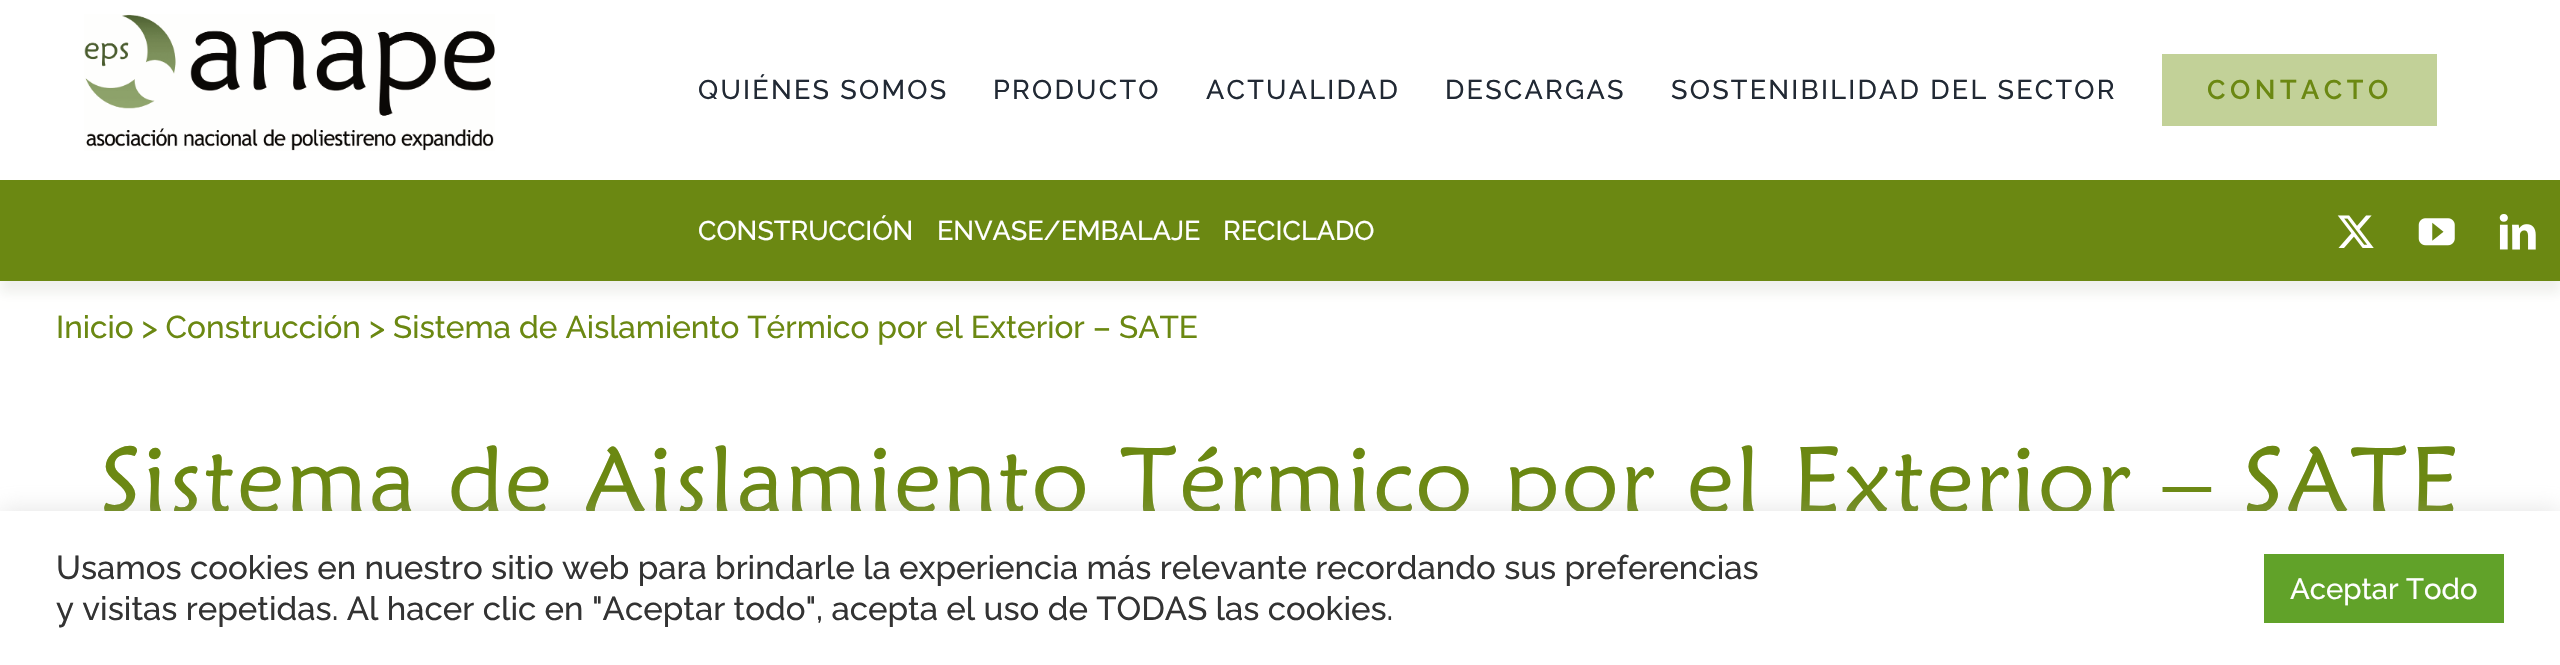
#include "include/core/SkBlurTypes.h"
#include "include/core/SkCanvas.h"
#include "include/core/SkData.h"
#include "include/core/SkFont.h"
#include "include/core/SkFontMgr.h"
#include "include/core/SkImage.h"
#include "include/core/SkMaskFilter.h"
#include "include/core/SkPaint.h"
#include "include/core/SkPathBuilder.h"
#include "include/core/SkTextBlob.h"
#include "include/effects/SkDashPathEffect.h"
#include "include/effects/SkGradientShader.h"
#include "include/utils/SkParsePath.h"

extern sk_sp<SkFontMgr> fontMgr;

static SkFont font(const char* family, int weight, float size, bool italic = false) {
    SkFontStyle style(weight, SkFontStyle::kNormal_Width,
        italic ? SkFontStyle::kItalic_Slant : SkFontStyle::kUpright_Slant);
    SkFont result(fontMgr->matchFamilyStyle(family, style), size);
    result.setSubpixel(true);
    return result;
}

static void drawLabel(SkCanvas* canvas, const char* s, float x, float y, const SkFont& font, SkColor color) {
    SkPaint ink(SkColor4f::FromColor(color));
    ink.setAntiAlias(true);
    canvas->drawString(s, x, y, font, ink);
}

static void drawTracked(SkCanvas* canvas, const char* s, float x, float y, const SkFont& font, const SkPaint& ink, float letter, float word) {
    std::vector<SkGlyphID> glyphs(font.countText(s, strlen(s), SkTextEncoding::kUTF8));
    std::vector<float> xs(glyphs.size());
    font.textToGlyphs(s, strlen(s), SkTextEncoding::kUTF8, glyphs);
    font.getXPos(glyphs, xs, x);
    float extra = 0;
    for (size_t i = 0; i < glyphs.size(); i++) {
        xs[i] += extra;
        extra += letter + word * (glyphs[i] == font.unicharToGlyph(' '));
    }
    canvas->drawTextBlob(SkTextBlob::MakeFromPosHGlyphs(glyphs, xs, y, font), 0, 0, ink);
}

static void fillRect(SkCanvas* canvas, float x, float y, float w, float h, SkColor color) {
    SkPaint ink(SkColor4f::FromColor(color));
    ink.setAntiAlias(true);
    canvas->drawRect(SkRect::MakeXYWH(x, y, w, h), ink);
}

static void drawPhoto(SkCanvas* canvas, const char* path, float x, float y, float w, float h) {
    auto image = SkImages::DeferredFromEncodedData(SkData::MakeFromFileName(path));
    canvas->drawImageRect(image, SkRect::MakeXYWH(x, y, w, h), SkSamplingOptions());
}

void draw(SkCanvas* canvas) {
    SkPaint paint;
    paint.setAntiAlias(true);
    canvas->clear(0xFFFFFFFF);
    drawPhoto(canvas, "assets/img1.png", 84, 14, 411, 137);
    SkFont font1 = font("Raleway", 500, 27);
    paint.setColor(0xFF212934);
    drawTracked(canvas, "QUIÉNES SOMOS", 698, 99, font1, paint, 2.25f, 0);
    drawTracked(canvas, "PRODUCTO", 993, 99, font1, paint, 2.25f, 0);
    drawTracked(canvas, "ACTUALIDAD", 1206, 99, font1, paint, 2.25f, 0);
    drawTracked(canvas, "DESCARGAS", 1445, 99, font1, paint, 2.25f, 0);
    drawTracked(canvas, "SOSTENIBILIDAD DEL SECTOR", 1671, 99, font1, paint, 2.25f, 0);
    fillRect(canvas, 2162, 54, 275, 72, 0xFFC2D198);
    SkFont font2 = font("Raleway", 600, 27);
    paint.setColor(0xFF6B8812);
    drawTracked(canvas, "CONTACTO", 2207, 99, font2, paint, 4.5f, 0);
    paint.setColor(0x12232D06);
    paint.setMaskFilter(SkMaskFilter::MakeBlur(kNormal_SkBlurStyle, 5.5f));
    canvas->drawRect(SkRect::MakeXYWH(0, 191, 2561, 102), paint);
    paint.setMaskFilter(nullptr);
    fillRect(canvas, 0, 180, 2560, 101, 0xFF6B8812);
    drawLabel(canvas, "CONSTRUCCIÓN", 698, 240, font1, 0xFFFFFFFF);
    drawLabel(canvas, "ENVASE/EMBALAJE", 937, 240, font1, 0xFFFFFFFF);
    drawLabel(canvas, "RECICLADO", 1223, 240, font1, 0xFFFFFFFF);
    drawPhoto(canvas, "assets/img2.png", 2337, 215, 37, 33);
    drawPhoto(canvas, "assets/img3.png", 2418, 218, 37, 28);
    drawPhoto(canvas, "assets/img4.png", 2499, 214, 37, 36);
    SkFont font3 = font("Raleway", 500, 31.5f);
    drawLabel(canvas, "Inicio > Construcción > Sistema de Aislamiento Térmico por el Exterior – SATE", 56, 338, font3, 0xFF6B8812);
    SkFont font4 = font("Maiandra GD", 400, 94.5f);
    paint.setColor(0xFF6B8812);
    drawTracked(canvas, "Sistema de Aislamiento Térmico por el Exterior – SATE", 100, 513, font4, paint, 2.25f, 0);
    paint.setColor(0x4DACABAB);
    paint.setMaskFilter(SkMaskFilter::MakeBlur(kNormal_SkBlurStyle, 11));
    canvas->drawRect(SkRect::MakeXYWH(0, 509, 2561, 155), paint);
    paint.setMaskFilter(nullptr);
    fillRect(canvas, 0, 511, 2560, 154, 0xFFFFFFFF);
    SkFont font5 = font("Raleway", 500, 33);
    drawLabel(canvas, "Usamos cookies en nuestro sitio web para brindarle la experiencia más relevante recordando sus preferencias", 56, 579, font5, 0xFF333333);
    drawLabel(canvas, "y visitas repetidas. Al hacer clic en \"Aceptar todo\", acepta el uso de TODAS las cookies.", 56, 620, font5, 0xFF333333);
    fillRect(canvas, 2264, 554, 240, 69, 0xFF61A229);
    SkFont font6 = font("Raleway", 500, 29.25f);
    drawLabel(canvas, "Aceptar Todo", 2290, 599, font6, 0xFFFFFFFF);
}
